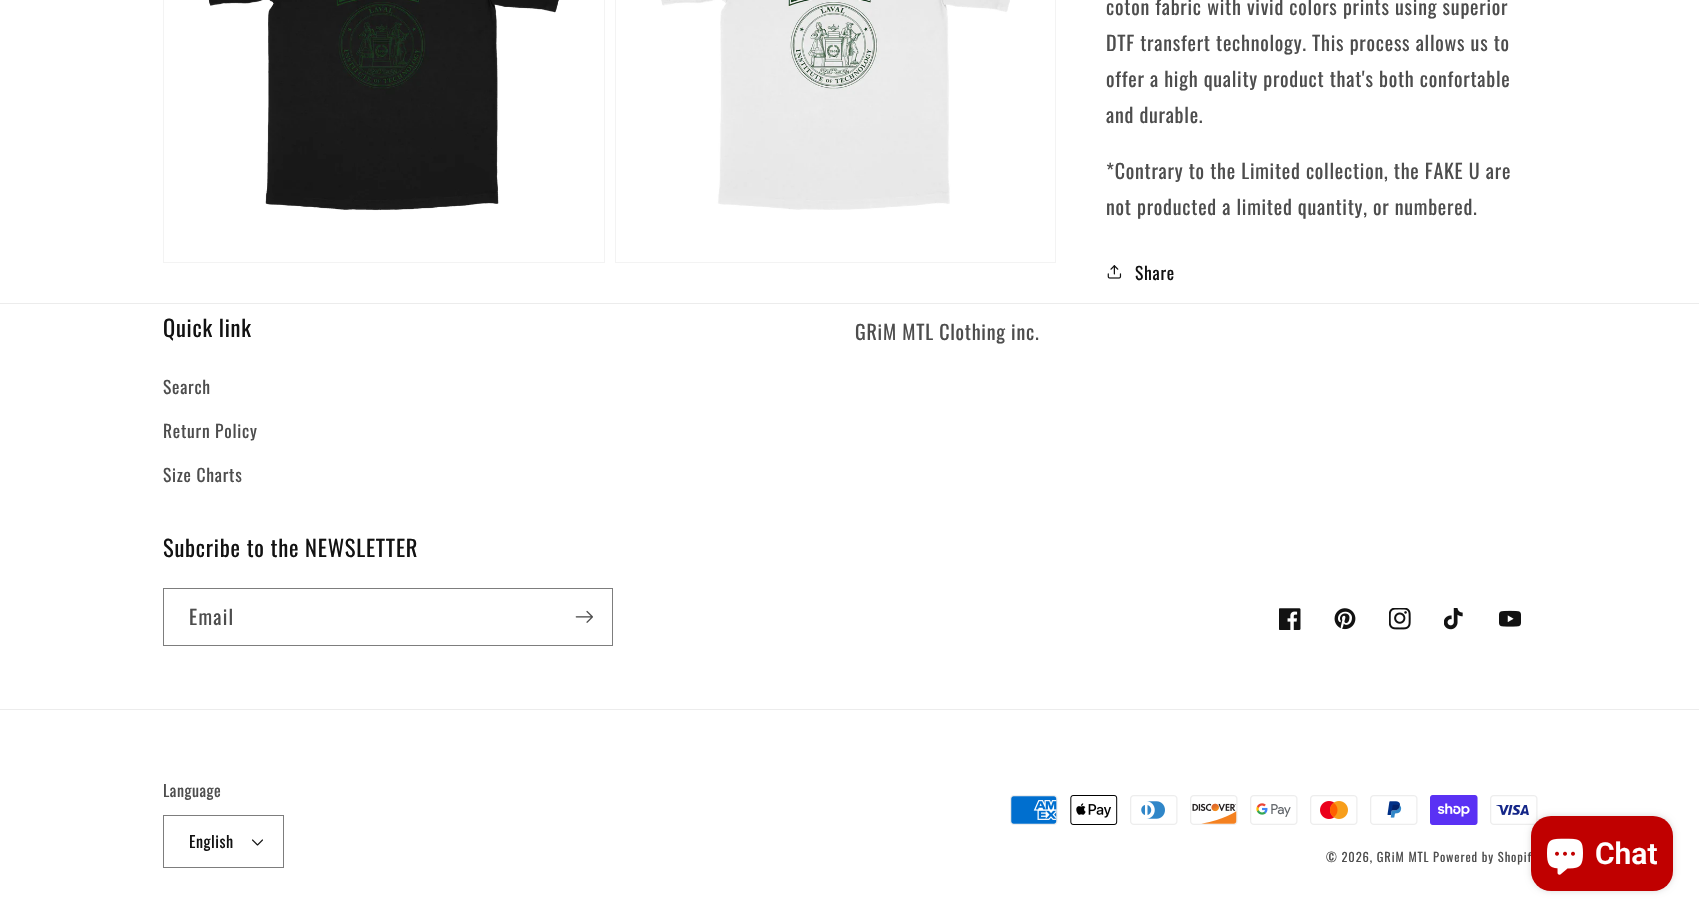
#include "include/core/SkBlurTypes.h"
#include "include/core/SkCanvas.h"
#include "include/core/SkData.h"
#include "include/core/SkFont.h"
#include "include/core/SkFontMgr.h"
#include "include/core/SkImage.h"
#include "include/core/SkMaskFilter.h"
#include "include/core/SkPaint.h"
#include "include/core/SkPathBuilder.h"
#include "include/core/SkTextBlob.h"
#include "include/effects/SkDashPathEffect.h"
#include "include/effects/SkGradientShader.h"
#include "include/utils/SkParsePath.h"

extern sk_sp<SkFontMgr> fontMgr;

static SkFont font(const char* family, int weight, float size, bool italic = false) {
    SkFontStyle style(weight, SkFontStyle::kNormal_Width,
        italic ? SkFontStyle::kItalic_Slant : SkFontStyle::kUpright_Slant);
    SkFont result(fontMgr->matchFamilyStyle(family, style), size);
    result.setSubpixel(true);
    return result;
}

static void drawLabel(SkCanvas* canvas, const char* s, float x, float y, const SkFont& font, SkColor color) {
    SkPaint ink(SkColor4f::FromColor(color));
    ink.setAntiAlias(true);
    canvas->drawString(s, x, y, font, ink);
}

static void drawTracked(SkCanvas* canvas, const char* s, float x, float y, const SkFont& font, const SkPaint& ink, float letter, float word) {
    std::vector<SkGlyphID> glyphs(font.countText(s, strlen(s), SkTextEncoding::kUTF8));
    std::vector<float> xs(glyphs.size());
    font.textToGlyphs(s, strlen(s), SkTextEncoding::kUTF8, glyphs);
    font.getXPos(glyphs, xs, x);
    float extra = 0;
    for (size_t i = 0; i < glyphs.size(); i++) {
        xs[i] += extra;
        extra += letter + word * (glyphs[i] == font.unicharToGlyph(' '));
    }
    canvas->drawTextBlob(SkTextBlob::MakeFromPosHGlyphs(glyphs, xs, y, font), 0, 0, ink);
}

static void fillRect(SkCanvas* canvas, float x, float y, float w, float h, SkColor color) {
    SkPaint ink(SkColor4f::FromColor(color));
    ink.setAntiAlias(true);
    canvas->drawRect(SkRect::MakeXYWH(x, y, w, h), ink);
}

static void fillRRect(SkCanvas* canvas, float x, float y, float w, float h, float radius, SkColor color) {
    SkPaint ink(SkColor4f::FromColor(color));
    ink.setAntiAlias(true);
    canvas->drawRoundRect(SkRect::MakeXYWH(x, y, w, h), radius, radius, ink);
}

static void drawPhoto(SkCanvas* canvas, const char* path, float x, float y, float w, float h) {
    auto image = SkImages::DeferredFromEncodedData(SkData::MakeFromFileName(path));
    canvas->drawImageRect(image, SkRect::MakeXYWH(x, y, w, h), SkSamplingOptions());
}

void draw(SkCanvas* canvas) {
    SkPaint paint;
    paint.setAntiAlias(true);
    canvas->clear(0xFFFFFFFF);
    paint.setStroke(true);
    paint.setStrokeWidth(1);
    paint.setColor(0xFFF3F3F3);
    canvas->drawRect(SkRect::MakeXYWH(163.5f, -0.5f, 441, 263), paint);
    drawPhoto(canvas, "assets/img1.png", 208, 0, 351, 211);
    canvas->drawRect(SkRect::MakeXYWH(615.5f, -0.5f, 440, 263), paint);
    drawPhoto(canvas, "assets/img2.png", 661, 0, 349, 210);
    SkFont font1 = font("Oswald", 400, 20);
    paint.setStroke(false);
    paint.setColor(0xFF4D4D4D);
    drawTracked(canvas, "coton fabric with vivid colors prints using superior", 1106, 15, font1, paint, 0.75f, 0);
    drawTracked(canvas, "DTF transfert technology. This process allows us to", 1106, 51, font1, paint, 0.75f, 0);
    drawTracked(canvas, "offer a high quality product that's both confortable", 1106, 87, font1, paint, 0.75f, 0);
    drawTracked(canvas, "and durable.", 1106, 123, font1, paint, 0.75f, 0);
    drawTracked(canvas, "*Contrary to the Limited collection, the FAKE U are", 1106, 179, font1, paint, 0.75f, 0);
    drawTracked(canvas, "not producted a limited quantity, or numbered.", 1106, 215, font1, paint, 0.75f, 0);
    drawPhoto(canvas, "assets/img3.png", 1107, 265, 15, 14);
    SkFont font2 = font("Oswald", 400, 17.5f);
    paint.setColor(0xFF121212);
    drawTracked(canvas, "Share", 1135, 280, font2, paint, 0.75f, 0);
    fillRect(canvas, 0, 303, 1699, 1, 0xFFECECEC);
    SkFont font3 = font("Oswald", 400, 22.5f);
    drawTracked(canvas, "Quick link", 163, 337, font3, paint, 0.75f, 0);
    paint.setColor(0xFF4D4D4D);
    drawTracked(canvas, "Search", 163, 394, font2, paint, 0.75f, 0);
    drawTracked(canvas, "Return Policy", 163, 438, font2, paint, 0.75f, 0);
    drawTracked(canvas, "Size Charts", 163, 482, font2, paint, 0.75f, 0);
    drawTracked(canvas, "GRiM MTL Clothing inc.", 855, 340, font1, paint, 0.75f, 0);
    paint.setColor(0xFF121212);
    drawTracked(canvas, "Subcribe to the NEWSLETTER", 163, 557, font3, paint, 0.75f, 0);
    paint.setStroke(true);
    paint.setColor(0xFF7D7D7D);
    canvas->drawRect(SkRect::MakeXYWH(163.5f, 588.5f, 449, 57), paint);
    paint.setStroke(false);
    paint.setColor(0xFF4D4D4D);
    drawTracked(canvas, "Email", 189, 625, font1, paint, 1.25f, 0);
    drawPhoto(canvas, "assets/img4.png", 575, 610, 18, 13);
    drawPhoto(canvas, "assets/img5.png", 1279, 608, 22, 22);
    drawPhoto(canvas, "assets/img6.png", 1334, 608, 22, 22);
    drawPhoto(canvas, "assets/img7.png", 1389, 608, 22, 22);
    drawPhoto(canvas, "assets/img8.png", 1444, 608, 19, 22);
    drawPhoto(canvas, "assets/img9.png", 1499, 610, 22, 17);
    fillRect(canvas, 0, 709, 1699, 1, 0xFFECECEC);
    SkFont font4 = font("Oswald", 400, 16);
    drawTracked(canvas, "Language", 163, 797, font4, paint, 0.5f, 0);
    drawPhoto(canvas, "assets/img10.png", 252, 839, 11, 7);
    paint.setStroke(true);
    paint.setColor(0xFF7D7D7D);
    canvas->drawRect(SkRect::MakeXYWH(163.5f, 815.5f, 120, 52), paint);
    paint.setStroke(false);
    paint.setColor(0xFF121212);
    drawTracked(canvas, "English", 189, 848, font4, paint, 0.5f, 0);
    drawPhoto(canvas, "assets/img11.png", 1010, 795, 48, 30);
    drawPhoto(canvas, "assets/img12.png", 1070, 795, 48, 30);
    drawPhoto(canvas, "assets/img13.png", 1130, 795, 48, 30);
    drawPhoto(canvas, "assets/img14.png", 1190, 795, 48, 30);
    drawPhoto(canvas, "assets/img15.png", 1250, 795, 48, 30);
    drawPhoto(canvas, "assets/img16.png", 1310, 795, 48, 30);
    drawPhoto(canvas, "assets/img17.png", 1370, 795, 48, 30);
    drawPhoto(canvas, "assets/img18.png", 1430, 795, 48, 30);
    drawPhoto(canvas, "assets/img19.png", 1490, 795, 48, 30);
    SkFont font5 = font("Oswald", 400, 12.5f);
    paint.setColor(0xFF4D4D4D);
    drawTracked(canvas, "© 2026, GRiM MTL", 1326, 862, font5, paint, 0.9f, 0);
    drawTracked(canvas, "Powered by Shopif", 1433, 862, font5, paint, 0.9f, 0);
    paint.setColor(0x26000000);
    paint.setMaskFilter(SkMaskFilter::MakeBlur(kNormal_SkBlurStyle, 3));
    canvas->drawRoundRect(SkRect::MakeXYWH(1531, 816, 142, 75), 20, 20, paint);
    paint.setMaskFilter(nullptr);
    fillRRect(canvas, 1531, 816, 142, 75, 20, 0xFFC00000);
    drawPhoto(canvas, "assets/img20.png", 1547, 838, 36, 37);
    SkFont font6 = font("Roboto", 600, 30);
    drawLabel(canvas, "Chat", 1595, 864, font6, 0xFFFFFFFF);
}
